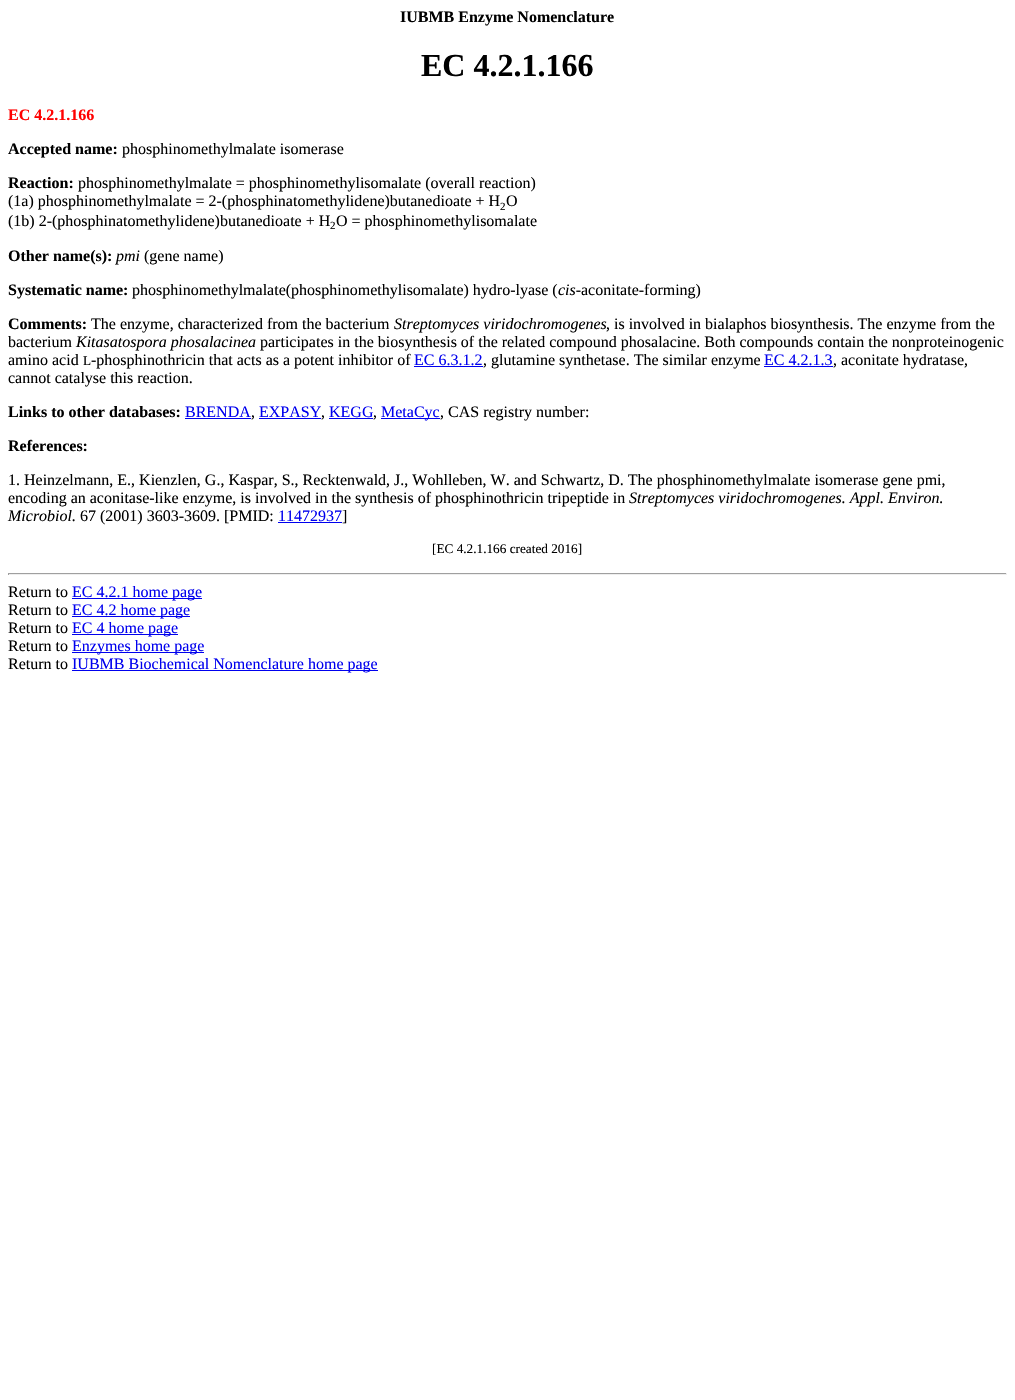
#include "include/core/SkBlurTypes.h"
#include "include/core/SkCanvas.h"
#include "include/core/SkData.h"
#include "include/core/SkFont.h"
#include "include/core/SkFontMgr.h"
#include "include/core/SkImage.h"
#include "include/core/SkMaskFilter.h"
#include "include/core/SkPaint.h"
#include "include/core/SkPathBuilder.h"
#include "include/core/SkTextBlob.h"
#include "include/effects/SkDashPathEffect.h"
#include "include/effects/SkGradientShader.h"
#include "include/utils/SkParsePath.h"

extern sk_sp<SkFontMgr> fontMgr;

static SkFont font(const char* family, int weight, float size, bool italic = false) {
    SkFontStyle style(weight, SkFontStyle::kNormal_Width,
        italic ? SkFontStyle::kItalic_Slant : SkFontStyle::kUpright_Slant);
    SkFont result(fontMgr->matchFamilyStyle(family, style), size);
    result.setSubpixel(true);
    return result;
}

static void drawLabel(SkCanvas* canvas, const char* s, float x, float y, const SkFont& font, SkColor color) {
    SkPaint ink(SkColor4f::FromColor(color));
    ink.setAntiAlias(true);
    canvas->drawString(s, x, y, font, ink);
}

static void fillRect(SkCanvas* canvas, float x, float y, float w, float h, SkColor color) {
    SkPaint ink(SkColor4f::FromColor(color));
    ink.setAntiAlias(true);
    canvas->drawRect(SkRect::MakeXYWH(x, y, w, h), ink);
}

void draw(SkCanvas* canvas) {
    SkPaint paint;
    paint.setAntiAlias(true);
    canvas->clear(0xFFFFFFFF);
    SkFont font1 = font("Liberation Serif", 700, 16);
    drawLabel(canvas, "IUBMB Enzyme Nomenclature", 400, 22, font1, 0xFF000000);
    SkFont font2 = font("Liberation Serif", 700, 32);
    drawLabel(canvas, "EC 4.2.1.166", 421, 76, font2, 0xFF000000);
    drawLabel(canvas, "EC 4.2.1.166", 8, 120, font1, 0xFFFF0000);
    drawLabel(canvas, "Accepted name:", 8, 154, font1, 0xFF000000);
    SkFont font3 = font("Liberation Serif", 400, 16);
    drawLabel(canvas, "phosphinomethylmalate isomerase", 122, 154, font3, 0xFF000000);
    drawLabel(canvas, "Reaction:", 8, 188, font1, 0xFF000000);
    drawLabel(canvas, "phosphinomethylmalate = phosphinomethylisomalate (overall reaction)", 78, 188, font3, 0xFF000000);
    drawLabel(canvas, "(1a) phosphinomethylmalate = 2-(phosphinatomethylidene)butanedioate + H", 8, 206, font3, 0xFF000000);
    SkFont font4 = font("Liberation Serif", 400, 11);
    drawLabel(canvas, "2", 500, 210, font4, 0xFF000000);
    drawLabel(canvas, "O", 506, 206, font3, 0xFF000000);
    drawLabel(canvas, "(1b) 2-(phosphinatomethylidene)butanedioate + H", 8, 226, font3, 0xFF000000);
    drawLabel(canvas, "2", 330, 229, font4, 0xFF000000);
    drawLabel(canvas, "O = phosphinomethylisomalate", 336, 226, font3, 0xFF000000);
    drawLabel(canvas, "Other name(s):", 8, 261, font1, 0xFF000000);
    SkFont font5 = font("Liberation Serif", 400, 16, true);
    drawLabel(canvas, "pmi", 116, 261, font5, 0xFF000000);
    drawLabel(canvas, "(gene name)", 144, 261, font3, 0xFF000000);
    drawLabel(canvas, "Systematic name:", 8, 295, font1, 0xFF000000);
    drawLabel(canvas, "phosphinomethylmalate(phosphinomethylisomalate) hydro-lyase (", 132, 295, font3, 0xFF000000);
    drawLabel(canvas, "cis-", 558, 295, font5, 0xFF000000);
    drawLabel(canvas, "aconitate-forming)", 581, 295, font3, 0xFF000000);
    drawLabel(canvas, "Comments:", 8, 329, font1, 0xFF000000);
    drawLabel(canvas, "The enzyme, characterized from the bacterium", 91, 329, font3, 0xFF000000);
    drawLabel(canvas, "Streptomyces viridochromogenes", 394, 329, font5, 0xFF000000);
    drawLabel(canvas, ", is involved in bialaphos biosynthesis. The enzyme from the", 606, 329, font3, 0xFF000000);
    drawLabel(canvas, "bacterium", 8, 347, font3, 0xFF000000);
    drawLabel(canvas, "Kitasatospora phosalacinea", 76, 347, font5, 0xFF000000);
    drawLabel(canvas, "participates in the biosynthesis of the related compound phosalacine. Both compounds contain the nonproteinogenic", 260, 347, font3, 0xFF000000);
    drawLabel(canvas, "amino acid", 8, 365, font3, 0xFF000000);
    SkFont font6 = font("Liberation Serif", 400, 13.25f);
    drawLabel(canvas, "L", 83, 365, font6, 0xFF000000);
    drawLabel(canvas, "-phosphinothricin that acts as a potent inhibitor of", 91, 365, font3, 0xFF000000);
    drawLabel(canvas, "EC 6.3.1.2", 414, 365, font3, 0xFF0000EE);
    fillRect(canvas, 414, 366, 69, 1, 0xFF0000EE);
    drawLabel(canvas, ", glutamine synthetase. The similar enzyme", 483, 365, font3, 0xFF000000);
    drawLabel(canvas, "EC 4.2.1.3", 764, 365, font3, 0xFF0000EE);
    fillRect(canvas, 764, 366, 69, 1, 0xFF0000EE);
    drawLabel(canvas, ", aconitate hydratase,", 833, 365, font3, 0xFF000000);
    drawLabel(canvas, "cannot catalyse this reaction.", 8, 383, font3, 0xFF000000);
    drawLabel(canvas, "Links to other databases:", 8, 417, font1, 0xFF000000);
    drawLabel(canvas, "BRENDA", 185, 417, font3, 0xFF0000EE);
    fillRect(canvas, 185, 418, 66, 1, 0xFF0000EE);
    drawLabel(canvas, ",", 251, 417, font3, 0xFF000000);
    drawLabel(canvas, "EXPASY", 259, 417, font3, 0xFF0000EE);
    fillRect(canvas, 259, 418, 62, 1, 0xFF0000EE);
    drawLabel(canvas, ",", 321, 417, font3, 0xFF000000);
    drawLabel(canvas, "KEGG", 329, 417, font3, 0xFF0000EE);
    fillRect(canvas, 329, 418, 44, 1, 0xFF0000EE);
    drawLabel(canvas, ",", 373, 417, font3, 0xFF000000);
    fillRect(canvas, 381, 418, 59, 1, 0xFF0000EE);
    drawLabel(canvas, "MetaCyc", 381, 417, font3, 0xFF0000EE);
    drawLabel(canvas, ", CAS registry number:", 440, 417, font3, 0xFF000000);
    drawLabel(canvas, "References:", 8, 451, font1, 0xFF000000);
    drawLabel(canvas, "1. Heinzelmann, E., Kienzlen, G., Kaspar, S., Recktenwald, J., Wohlleben, W. and Schwartz, D. The phosphinomethylmalate isomerase gene pmi,", 8, 485, font3, 0xFF000000);
    drawLabel(canvas, "encoding an aconitase-like enzyme, is involved in the synthesis of phosphinothricin tripeptide in", 8, 503, font3, 0xFF000000);
    drawLabel(canvas, "Streptomyces viridochromogenes. Appl. Environ.", 629, 503, font5, 0xFF000000);
    drawLabel(canvas, "Microbiol.", 8, 521, font5, 0xFF000000);
    drawLabel(canvas, "67 (2001) 3603-3609. [PMID:", 80, 521, font3, 0xFF000000);
    drawLabel(canvas, "11472937", 278, 521, font3, 0xFF0000EE);
    fillRect(canvas, 278, 522, 64, 1, 0xFF0000EE);
    drawLabel(canvas, "]", 342, 521, font3, 0xFF000000);
    drawLabel(canvas, "[EC 4.2.1.166 created 2016]", 432, 553, font6, 0xFF000000);
    fillRect(canvas, 8, 573, 999, 1, 0xFF9F9F9F);
    fillRect(canvas, 1006, 573, 1, 2, 0xFFEEEEEE);
    fillRect(canvas, 8, 574, 999, 1, 0xFFEEEEEE);
    fillRect(canvas, 8, 573, 1, 2, 0xFF9F9F9F);
    drawLabel(canvas, "Return to", 8, 597, font3, 0xFF000000);
    fillRect(canvas, 72, 598, 130, 1, 0xFF0000EE);
    drawLabel(canvas, "EC 4.2.1 home page", 72, 597, font3, 0xFF0000EE);
    drawLabel(canvas, "Return to", 8, 615, font3, 0xFF000000);
    fillRect(canvas, 72, 616, 118, 1, 0xFF0000EE);
    drawLabel(canvas, "EC 4.2 home page", 72, 615, font3, 0xFF0000EE);
    drawLabel(canvas, "Return to", 8, 633, font3, 0xFF000000);
    fillRect(canvas, 72, 634, 106, 1, 0xFF0000EE);
    drawLabel(canvas, "EC 4 home page", 72, 633, font3, 0xFF0000EE);
    drawLabel(canvas, "Return to", 8, 651, font3, 0xFF000000);
    fillRect(canvas, 72, 652, 132, 1, 0xFF0000EE);
    drawLabel(canvas, "Enzymes home page", 72, 651, font3, 0xFF0000EE);
    drawLabel(canvas, "Return to", 8, 669, font3, 0xFF000000);
    fillRect(canvas, 72, 670, 306, 1, 0xFF0000EE);
    drawLabel(canvas, "IUBMB Biochemical Nomenclature home page", 72, 669, font3, 0xFF0000EE);
}
